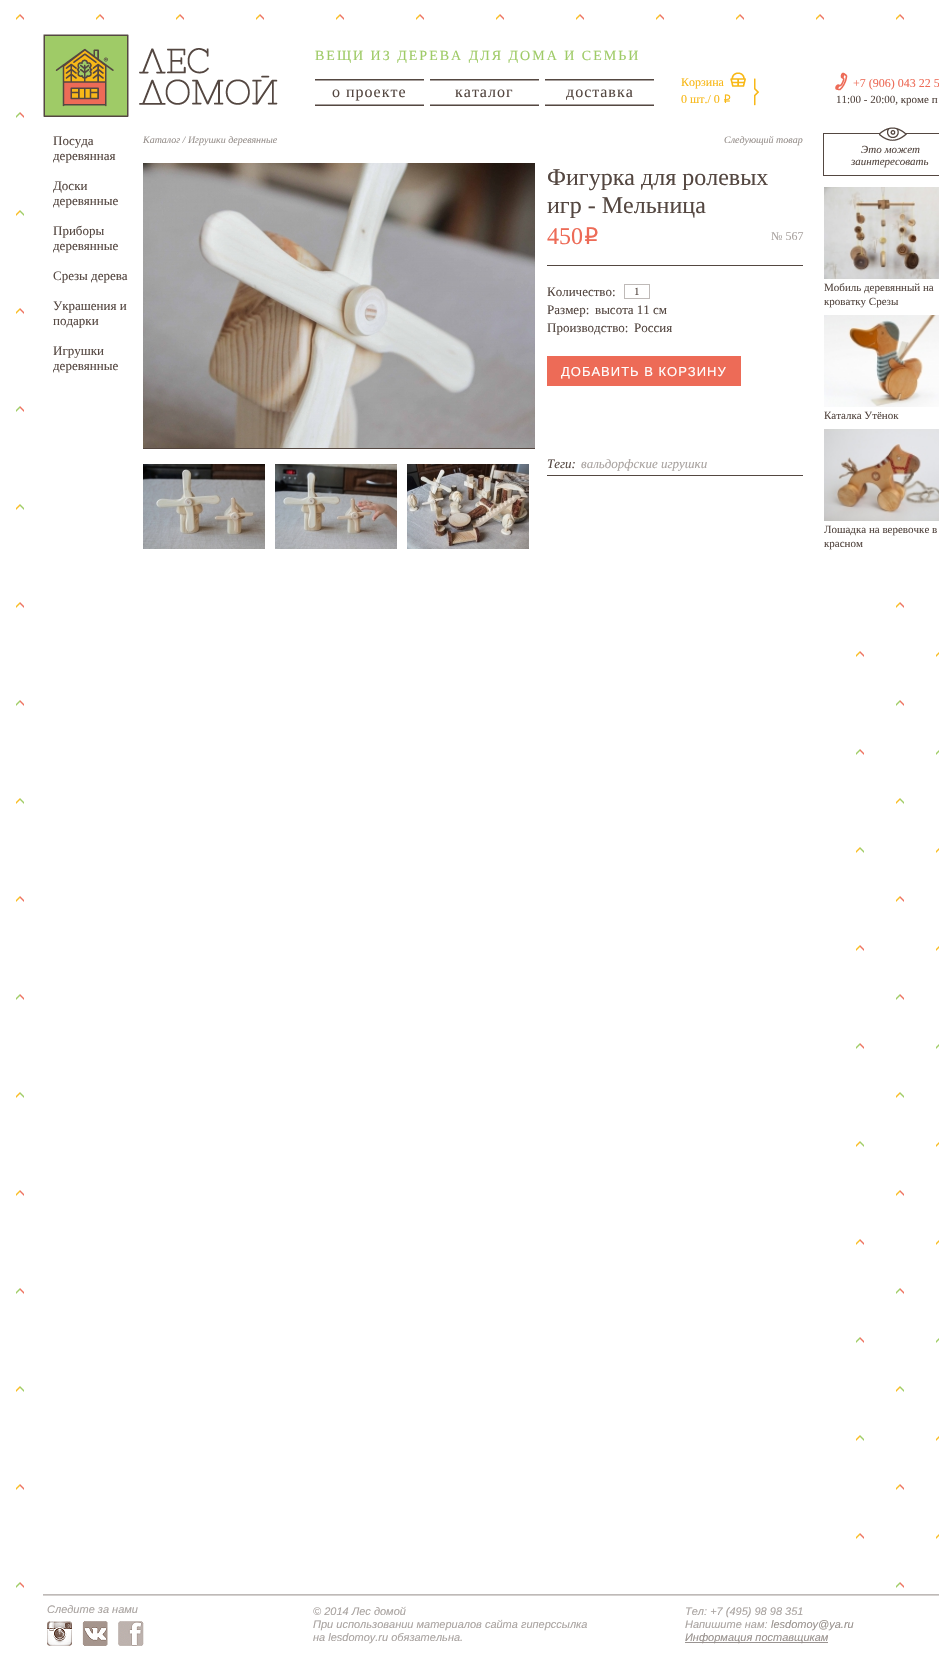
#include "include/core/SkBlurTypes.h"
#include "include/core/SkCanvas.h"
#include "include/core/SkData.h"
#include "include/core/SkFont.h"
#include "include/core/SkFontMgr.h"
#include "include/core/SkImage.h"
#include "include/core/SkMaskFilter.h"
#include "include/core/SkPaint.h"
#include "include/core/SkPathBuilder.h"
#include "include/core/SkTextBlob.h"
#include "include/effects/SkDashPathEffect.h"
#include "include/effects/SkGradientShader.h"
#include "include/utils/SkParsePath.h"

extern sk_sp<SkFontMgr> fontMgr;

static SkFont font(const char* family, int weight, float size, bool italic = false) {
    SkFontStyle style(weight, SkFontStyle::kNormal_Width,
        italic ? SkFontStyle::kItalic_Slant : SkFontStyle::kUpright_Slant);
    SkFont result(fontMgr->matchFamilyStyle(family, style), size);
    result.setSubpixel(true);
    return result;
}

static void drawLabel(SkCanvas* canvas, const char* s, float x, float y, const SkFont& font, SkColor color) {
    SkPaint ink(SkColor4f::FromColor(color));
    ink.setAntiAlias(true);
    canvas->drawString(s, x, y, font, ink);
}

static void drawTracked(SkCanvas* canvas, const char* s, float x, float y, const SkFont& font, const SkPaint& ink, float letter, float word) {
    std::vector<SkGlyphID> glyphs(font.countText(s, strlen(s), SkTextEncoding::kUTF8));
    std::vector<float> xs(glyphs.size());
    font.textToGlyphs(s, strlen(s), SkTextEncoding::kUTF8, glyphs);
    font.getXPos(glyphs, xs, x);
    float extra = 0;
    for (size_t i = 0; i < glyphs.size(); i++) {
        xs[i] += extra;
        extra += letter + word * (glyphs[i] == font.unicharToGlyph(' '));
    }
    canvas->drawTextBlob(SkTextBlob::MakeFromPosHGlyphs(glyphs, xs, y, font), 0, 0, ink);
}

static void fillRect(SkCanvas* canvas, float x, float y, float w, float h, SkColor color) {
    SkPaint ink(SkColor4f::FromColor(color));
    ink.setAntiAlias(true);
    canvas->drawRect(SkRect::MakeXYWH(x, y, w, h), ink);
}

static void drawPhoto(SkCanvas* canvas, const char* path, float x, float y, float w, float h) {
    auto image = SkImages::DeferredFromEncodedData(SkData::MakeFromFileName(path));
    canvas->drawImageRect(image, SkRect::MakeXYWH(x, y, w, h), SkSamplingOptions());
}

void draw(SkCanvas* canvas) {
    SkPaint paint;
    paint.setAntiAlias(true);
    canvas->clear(0xFFFFFFFF);
    drawPhoto(canvas, "assets/img1.png", 16, 14, 923, 1574);
    fillRect(canvas, 56, 63, 883, 55, 0xFFFFFFFF);
    drawPhoto(canvas, "assets/img2.png", 43, 34, 235, 83);
    SkFont font1 = font("Liberation Serif", 400, 14);
    paint.setColor(0xFF9FCB67);
    drawTracked(canvas, "ВЕЩИ ИЗ ДЕРЕВА ДЛЯ ДОМА И СЕМЬИ", 315, 60, font1, paint, 2, 0);
    fillRect(canvas, 315, 79, 109, 1, 0xFF544741);
    fillRect(canvas, 315, 105, 109, 1, 0xFF544741);
    fillRect(canvas, 315, 80, 109, 1, 0xFFA69F9C);
    fillRect(canvas, 315, 104, 109, 1, 0xFFA69F9C);
    SkFont font2 = font("Liberation Serif", 400, 16);
    paint.setColor(0xFF544741);
    drawTracked(canvas, "о проекте", 332, 97, font2, paint, 1, 0);
    fillRect(canvas, 430, 79, 109, 1, 0xFF544741);
    fillRect(canvas, 430, 105, 109, 1, 0xFF544741);
    fillRect(canvas, 430, 80, 109, 1, 0xFFA69F9C);
    fillRect(canvas, 430, 104, 109, 1, 0xFFA69F9C);
    drawTracked(canvas, "каталог", 455, 97, font2, paint, 1, 0);
    fillRect(canvas, 545, 79, 109, 1, 0xFF544741);
    fillRect(canvas, 545, 105, 109, 1, 0xFF544741);
    fillRect(canvas, 545, 80, 109, 1, 0xFFA69F9C);
    fillRect(canvas, 545, 104, 109, 1, 0xFFA69F9C);
    drawTracked(canvas, "доставка", 566, 97, font2, paint, 1, 0);
    SkFont font3 = font("Liberation Serif", 400, 12);
    drawLabel(canvas, "Корзина", 681, 86, font3, 0xFFF8B817);
    drawPhoto(canvas, "assets/img3.png", 730, 72, 16, 15);
    drawPhoto(canvas, "assets/img4.png", 754, 78, 5, 28);
    drawLabel(canvas, "0 шт./ 0", 681, 103, font3, 0xFFF8B817);
    SkFont font4 = font("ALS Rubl", 400, 12);
    drawLabel(canvas, "i", 723, 103, font4, 0xFFF8B817);
    drawPhoto(canvas, "assets/img5.png", 835, 72, 13, 19);
    drawLabel(canvas, "+7 (906) 043 22 5", 853, 87, font3, 0xFFED6B57);
    SkFont font5 = font("Liberation Serif", 400, 11);
    drawLabel(canvas, "11:00 - 20:00, кроме п", 836, 103, font5, 0xFF544741);
    SkFont font6 = font("Liberation Serif", 400, 13);
    drawLabel(canvas, "Посуда", 53, 145, font6, 0xFF544741);
    fillRect(canvas, 56, 161, 768, 1427, 0xFFFFFFFF);
    drawLabel(canvas, "деревянная", 53, 160, font6, 0xFF544741);
    drawLabel(canvas, "Доски", 53, 190, font6, 0xFF544741);
    drawLabel(canvas, "деревянные", 53, 205, font6, 0xFF544741);
    drawLabel(canvas, "Приборы", 53, 235, font6, 0xFF544741);
    drawLabel(canvas, "деревянные", 53, 250, font6, 0xFF544741);
    drawLabel(canvas, "Срезы дерева", 53, 280, font6, 0xFF544741);
    drawLabel(canvas, "Украшения и", 53, 310, font6, 0xFF544741);
    drawLabel(canvas, "подарки", 53, 325, font6, 0xFF544741);
    drawLabel(canvas, "Игрушки", 53, 355, font6, 0xFF544741);
    drawLabel(canvas, "деревянные", 53, 370, font6, 0xFF544741);
    SkFont font7 = font("Liberation Serif", 400, 10, true);
    drawLabel(canvas, "Каталог / Игрушки деревянные", 143, 143, font7, 0xFF98918D);
    drawLabel(canvas, "Следующий товар", 724, 143, font7, 0xFF98918D);
    fillRect(canvas, 143, 448, 392, 1, 0xFF544741);
    drawPhoto(canvas, "assets/img6.png", 143, 163, 392, 285);
    drawPhoto(canvas, "assets/img7.png", 143, 464, 122, 85);
    drawPhoto(canvas, "assets/img8.png", 275, 464, 122, 85);
    drawPhoto(canvas, "assets/img9.png", 407, 464, 122, 85);
    SkFont font8 = font("Liberation Serif", 400, 24);
    drawLabel(canvas, "Фигурка для ролевых", 547, 185, font8, 0xFF544741);
    drawLabel(canvas, "игр - Мельница", 547, 213, font8, 0xFF544741);
    fillRect(canvas, 547, 265, 256, 1, 0xFF544741);
    drawLabel(canvas, "450", 547, 244, font8, 0xFFED6B57);
    SkFont font9 = font("ALS Rubl", 400, 24);
    drawLabel(canvas, "i", 583, 244, font9, 0xFFED6B57);
    drawLabel(canvas, "№ 567", 771, 240, font3, 0xFFA9A3A0);
    fillRect(canvas, 547, 475, 256, 1, 0xFF544741);
    drawLabel(canvas, "Количество:", 547, 296, font6, 0xFF544741);
    paint.setStroke(true);
    paint.setStrokeWidth(1);
    paint.setColor(0xFFBFBAB8);
    canvas->drawRect(SkRect::MakeXYWH(624.5f, 284.5f, 25, 14), paint);
    drawLabel(canvas, "1", 634, 295, font5, 0xFF544741);
    drawLabel(canvas, "Размер:", 547, 314, font6, 0xFF544741);
    drawLabel(canvas, "высота 11 см", 595, 314, font6, 0xFF544741);
    drawLabel(canvas, "Производство:", 547, 332, font6, 0xFF544741);
    drawLabel(canvas, "Россия", 634, 332, font6, 0xFF544741);
    fillRect(canvas, 547, 356, 194, 30, 0xFFED6B57);
    SkFont font10 = font("Liberation Sans", 400, 13);
    paint.setStroke(false);
    paint.setColor(0xFFFFFFFF);
    drawTracked(canvas, "ДОБАВИТЬ В КОРЗИНУ", 561, 376, font10, paint, 1, 0);
    SkFont font11 = font("Liberation Serif", 400, 13, true);
    drawLabel(canvas, "Теги:", 547, 468, font11, 0xFF544741);
    drawLabel(canvas, "вальдорфские игрушки", 581, 468, font11, 0xFFA9A3A0);
    fillRect(canvas, 856, 161, 83, 398, 0xFFFFFFFF);
    paint.setStroke(true);
    paint.setColor(0xFF544741);
    canvas->drawRect(SkRect::MakeXYWH(823.5f, 133.5f, 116, 42), paint);
    drawPhoto(canvas, "assets/img10.png", 879, 127, 28, 14);
    SkFont font12 = font("Liberation Serif", 400, 11, true);
    drawLabel(canvas, "Это может", 861, 153, font12, 0xFF544741);
    drawLabel(canvas, "заинтересовать", 851, 165, font12, 0xFF544741);
    drawPhoto(canvas, "assets/img11.png", 824, 187, 115, 92);
    drawLabel(canvas, "Мобиль деревянный на", 824, 291, font5, 0xFF544741);
    drawLabel(canvas, "кроватку Срезы", 824, 305, font5, 0xFF544741);
    drawPhoto(canvas, "assets/img12.png", 824, 315, 115, 92);
    drawLabel(canvas, "Каталка Утёнок", 824, 419, font5, 0xFF544741);
    drawPhoto(canvas, "assets/img13.png", 824, 429, 115, 92);
    drawLabel(canvas, "Лошадка на веревочке в", 824, 533, font5, 0xFF544741);
    drawLabel(canvas, "красном", 824, 547, font5, 0xFF544741);
    fillRect(canvas, 43, 1594, 896, 1, 0xFFBFBAB8);
    fillRect(canvas, 43, 1595, 896, 1, 0xFFD4D1CF);
    SkFont font13 = font("Liberation Sans", 400, 11, true);
    drawLabel(canvas, "Следите за нами", 47, 1613, font13, 0xFFA9A3A0);
    drawPhoto(canvas, "assets/img14.png", 47, 1621, 25, 25);
    drawPhoto(canvas, "assets/img15.png", 82, 1621, 26, 25);
    drawPhoto(canvas, "assets/img16.png", 118, 1621, 26, 25);
    drawLabel(canvas, "© 2014 Лес домой", 313, 1615, font13, 0xFFA9A3A0);
    drawLabel(canvas, "При использовании материалов сайта гиперссылка", 313, 1628, font13, 0xFFA9A3A0);
    drawLabel(canvas, "на lesdomoy.ru обязательна.", 313, 1641, font13, 0xFFA9A3A0);
    drawLabel(canvas, "Тел: +7 (495) 98 98 351", 685, 1615, font13, 0xFFA9A3A0);
    drawLabel(canvas, "Напишите нам:", 685, 1628, font13, 0xFFA9A3A0);
    drawLabel(canvas, "lesdomoy@ya.ru", 771, 1628, font13, 0xFF98918D);
    fillRect(canvas, 685, 1642, 143, 1, 0xFF999391);
    drawLabel(canvas, "Информация поставщикам", 685, 1641, font13, 0xFF98918D);
}
